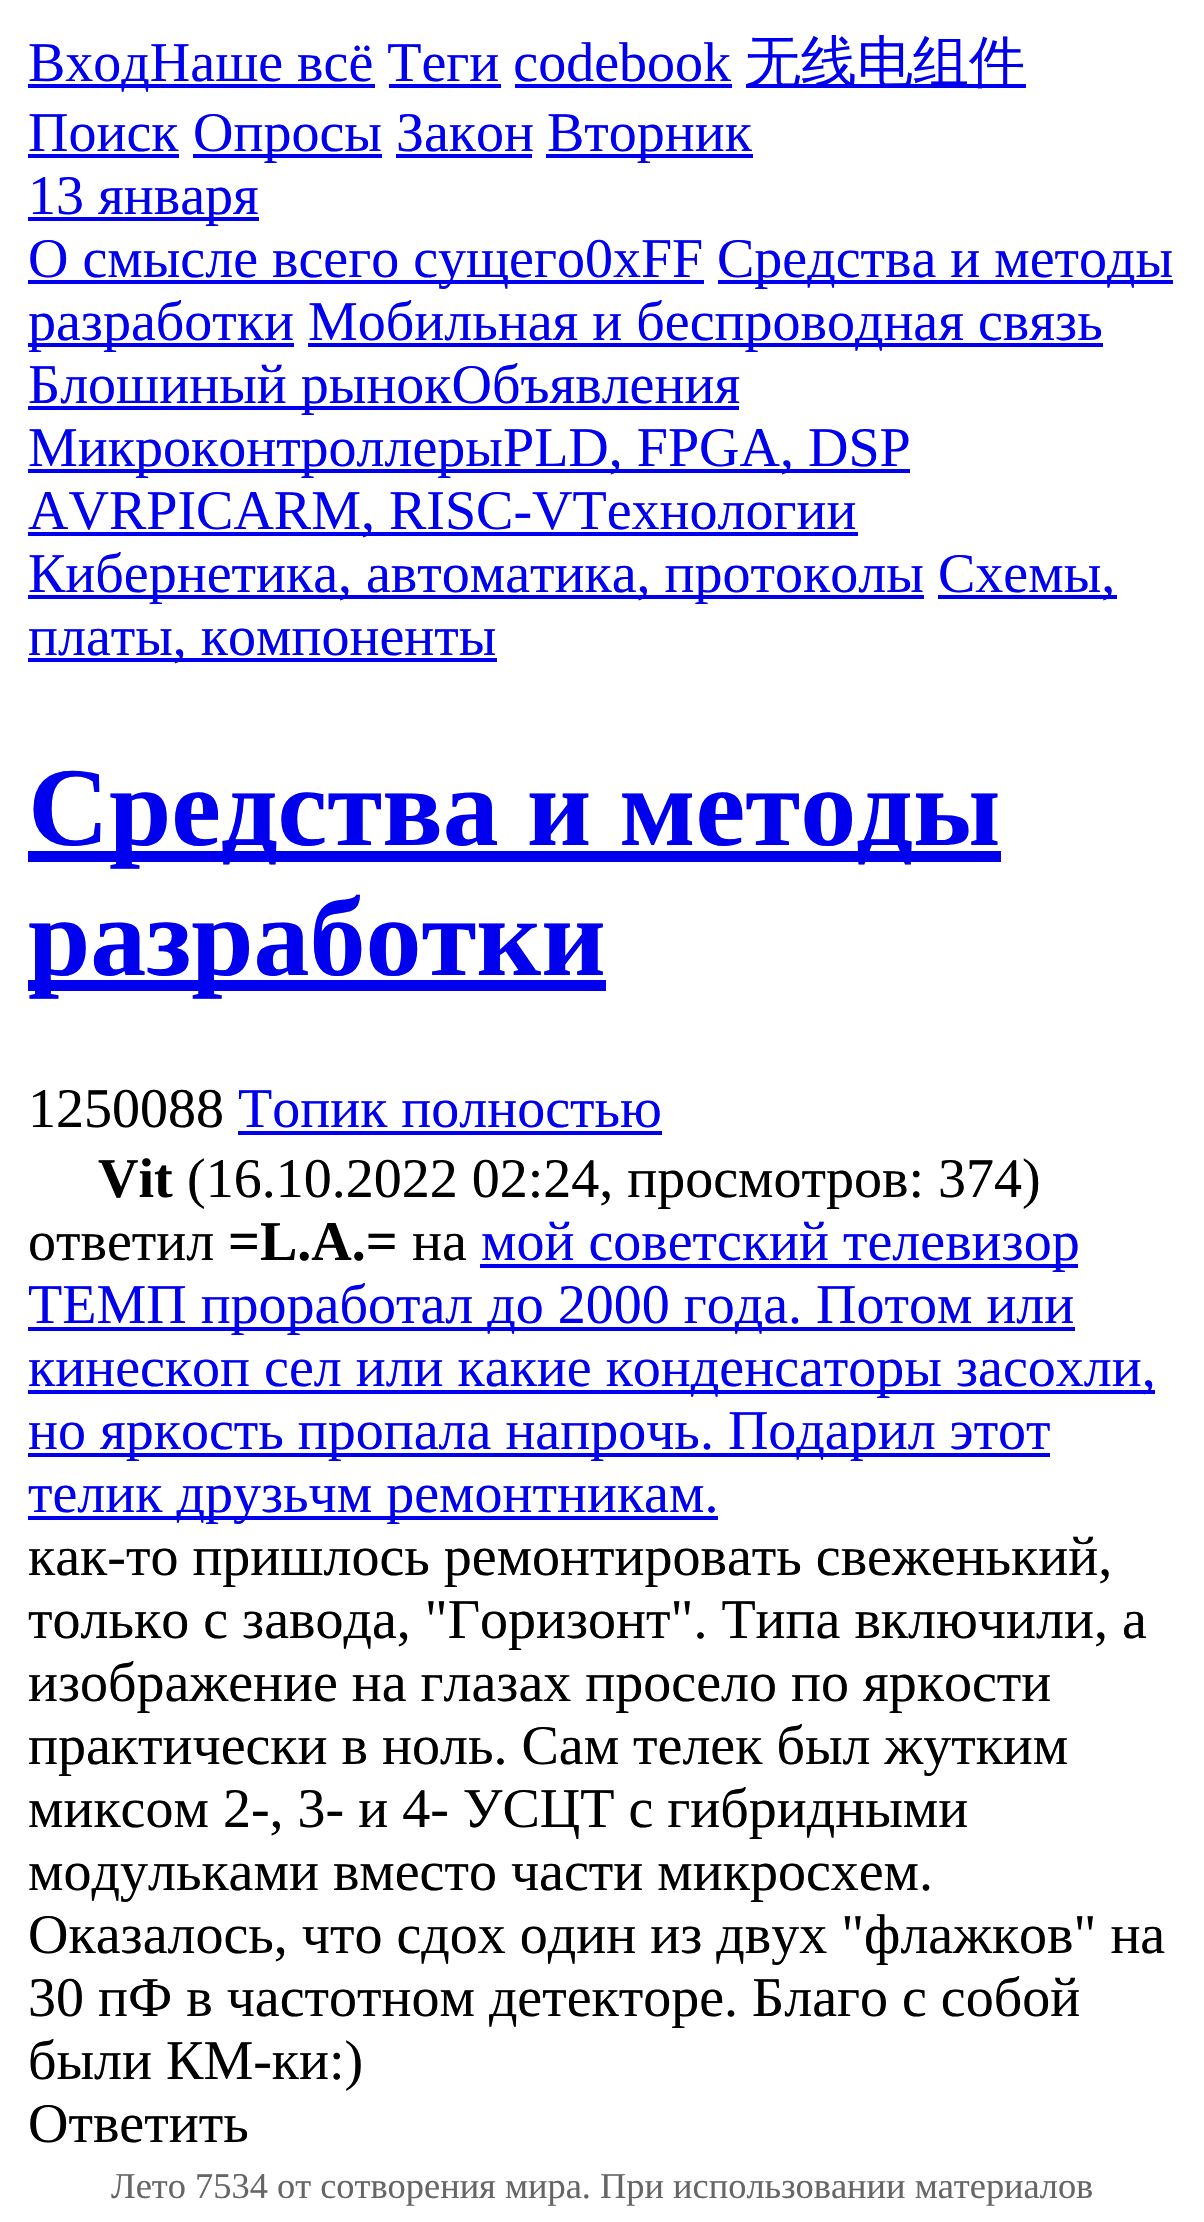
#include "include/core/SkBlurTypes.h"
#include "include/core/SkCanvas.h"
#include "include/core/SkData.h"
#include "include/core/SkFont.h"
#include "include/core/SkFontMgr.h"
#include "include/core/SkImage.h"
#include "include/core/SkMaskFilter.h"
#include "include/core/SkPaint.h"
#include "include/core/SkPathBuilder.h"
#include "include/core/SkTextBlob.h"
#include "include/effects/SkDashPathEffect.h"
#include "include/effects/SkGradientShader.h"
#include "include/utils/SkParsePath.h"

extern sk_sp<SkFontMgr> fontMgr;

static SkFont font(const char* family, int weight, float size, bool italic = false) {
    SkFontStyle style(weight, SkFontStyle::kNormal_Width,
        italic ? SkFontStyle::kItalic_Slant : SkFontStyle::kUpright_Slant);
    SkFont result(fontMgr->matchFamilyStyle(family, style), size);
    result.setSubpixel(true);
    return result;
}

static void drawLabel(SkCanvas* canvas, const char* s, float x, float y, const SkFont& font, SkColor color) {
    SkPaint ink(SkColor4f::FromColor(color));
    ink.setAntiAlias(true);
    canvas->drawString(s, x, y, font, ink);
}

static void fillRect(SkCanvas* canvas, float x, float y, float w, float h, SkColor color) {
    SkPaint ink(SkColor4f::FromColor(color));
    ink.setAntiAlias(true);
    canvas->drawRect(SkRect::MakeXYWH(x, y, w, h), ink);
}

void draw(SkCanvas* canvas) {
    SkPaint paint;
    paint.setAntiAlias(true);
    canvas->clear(0xFFFFFFFF);
    fillRect(canvas, 28, 84, 347, 4, 0xFF0000EE);
    SkFont font1 = font("Liberation Serif", 400, 56);
    drawLabel(canvas, "ВходНаше всё Теги codebook", 28, 81, font1, 0xFF0000EE);
    fillRect(canvas, 746, 84, 280, 4, 0xFF0000EE);
    SkFont font2 = font("WenQuanYi Zen Hei", 500, 56);
    drawLabel(canvas, "无线电组件", 745, 81, font2, 0xFF0000EE);
    fillRect(canvas, 389, 84, 112, 4, 0xFF0000EE);
    fillRect(canvas, 515, 84, 217, 4, 0xFF0000EE);
    drawLabel(canvas, "Поиск", 28, 151, font1, 0xFF0000EE);
    fillRect(canvas, 28, 154, 151, 4, 0xFF0000EE);
    fillRect(canvas, 193, 154, 189, 4, 0xFF0000EE);
    drawLabel(canvas, "Опросы Закон", 193, 151, font1, 0xFF0000EE);
    fillRect(canvas, 546, 154, 207, 4, 0xFF0000EE);
    drawLabel(canvas, "Вторник", 547, 151, font1, 0xFF0000EE);
    fillRect(canvas, 396, 154, 136, 4, 0xFF0000EE);
    fillRect(canvas, 28, 217, 231, 4, 0xFF0000EE);
    drawLabel(canvas, "13 января", 28, 214, font1, 0xFF0000EE);
    fillRect(canvas, 28, 280, 676, 4, 0xFF0000EE);
    drawLabel(canvas, "О смысле всего сущего0xFF", 28, 277, font1, 0xFF0000EE);
    fillRect(canvas, 718, 280, 455, 4, 0xFF0000EE);
    drawLabel(canvas, "Средства и методы", 717, 277, font1, 0xFF0000EE);
    fillRect(canvas, 28, 343, 266, 4, 0xFF0000EE);
    drawLabel(canvas, "разработки", 28, 340, font1, 0xFF0000EE);
    fillRect(canvas, 308, 343, 795, 4, 0xFF0000EE);
    drawLabel(canvas, "Мобильная и беспроводная связь", 308, 340, font1, 0xFF0000EE);
    fillRect(canvas, 28, 406, 711, 4, 0xFF0000EE);
    drawLabel(canvas, "Блошиный рынокОбъявления", 28, 403, font1, 0xFF0000EE);
    fillRect(canvas, 28, 469, 882, 4, 0xFF0000EE);
    drawLabel(canvas, "МикроконтроллерыPLD, FPGA, DSP", 28, 466, font1, 0xFF0000EE);
    fillRect(canvas, 28, 532, 830, 4, 0xFF0000EE);
    drawLabel(canvas, "AVRPICARM, RISC-VТехнологии", 28, 529, font1, 0xFF0000EE);
    fillRect(canvas, 28, 595, 896, 4, 0xFF0000EE);
    drawLabel(canvas, "Кибернетика, автоматика, протоколы", 28, 592, font1, 0xFF0000EE);
    fillRect(canvas, 938, 595, 179, 4, 0xFF0000EE);
    drawLabel(canvas, "Схемы,", 938, 592, font1, 0xFF0000EE);
    fillRect(canvas, 28, 658, 469, 4, 0xFF0000EE);
    drawLabel(canvas, "платы, компоненты", 28, 655, font1, 0xFF0000EE);
    fillRect(canvas, 28, 851, 973, 11, 0xFF0000EE);
    SkFont font3 = font("Liberation Serif", 700, 112);
    drawLabel(canvas, "Средства и методы", 28, 845, font3, 0xFF0000EE);
    fillRect(canvas, 28, 980, 578, 11, 0xFF0000EE);
    drawLabel(canvas, "разработки", 28, 975, font3, 0xFF0000EE);
    drawLabel(canvas, "1250088", 28, 1127, font1, 0xFF000000);
    drawLabel(canvas, "Топик полностью", 238, 1127, font1, 0xFF0000EE);
    fillRect(canvas, 238, 1131, 424, 4, 0xFF0000EE);
    SkFont font4 = font("Liberation Serif", 700, 56);
    drawLabel(canvas, "Vit", 98, 1197, font4, 0xFF000000);
    drawLabel(canvas, "(16.10.2022 02:24, просмотров: 374)", 187, 1197, font1, 0xFF000000);
    drawLabel(canvas, "ответил", 28, 1260, font1, 0xFF000000);
    drawLabel(canvas, "=L.A.=", 228, 1260, font4, 0xFF000000);
    drawLabel(canvas, "на", 412, 1260, font1, 0xFF000000);
    fillRect(canvas, 480, 1264, 598, 4, 0xFF0000EE);
    drawLabel(canvas, "мой советский телевизор", 481, 1260, font1, 0xFF0000EE);
    fillRect(canvas, 28, 1327, 1047, 4, 0xFF0000EE);
    drawLabel(canvas, "ТЕМП проработал до 2000 года. Потом или", 28, 1323, font1, 0xFF0000EE);
    fillRect(canvas, 28, 1390, 1127, 4, 0xFF0000EE);
    drawLabel(canvas, "кинескоп сел или какие конденсаторы засохли,", 28, 1386, font1, 0xFF0000EE);
    fillRect(canvas, 28, 1453, 1022, 4, 0xFF0000EE);
    drawLabel(canvas, "но яркость пропала напрочь. Подарил этот", 28, 1449, font1, 0xFF0000EE);
    fillRect(canvas, 28, 1516, 690, 4, 0xFF0000EE);
    drawLabel(canvas, "телик друзьчм ремонтникам.", 28, 1512, font1, 0xFF0000EE);
    drawLabel(canvas, "как-то пришлось ремонтировать свеженький,", 28, 1575, font1, 0xFF000000);
    drawLabel(canvas, "только с завода, \"Горизонт\". Типа включили, а", 28, 1638, font1, 0xFF000000);
    drawLabel(canvas, "изображение на глазах просело по яркости", 28, 1701, font1, 0xFF000000);
    drawLabel(canvas, "практически в ноль. Сам телек был жутким", 28, 1764, font1, 0xFF000000);
    drawLabel(canvas, "миксом 2-, 3- и 4- УСЦТ с гибридными", 28, 1827, font1, 0xFF000000);
    drawLabel(canvas, "модульками вместо части микросхем.", 28, 1890, font1, 0xFF000000);
    drawLabel(canvas, "Оказалось, что сдох один из двух \"флажков\" на", 28, 1953, font1, 0xFF000000);
    drawLabel(canvas, "30 пФ в частотном детекторе. Благо с собой", 28, 2016, font1, 0xFF000000);
    drawLabel(canvas, "были КМ-ки:)", 28, 2079, font1, 0xFF000000);
    drawLabel(canvas, "Ответить", 28, 2142, font1, 0xFF000000);
    SkFont font5 = font("Liberation Serif", 400, 36.4f);
    drawLabel(canvas, "Лето 7534 от сотворения мира. При использовании материалов", 111, 2198, font5, 0xFF666666);
}
